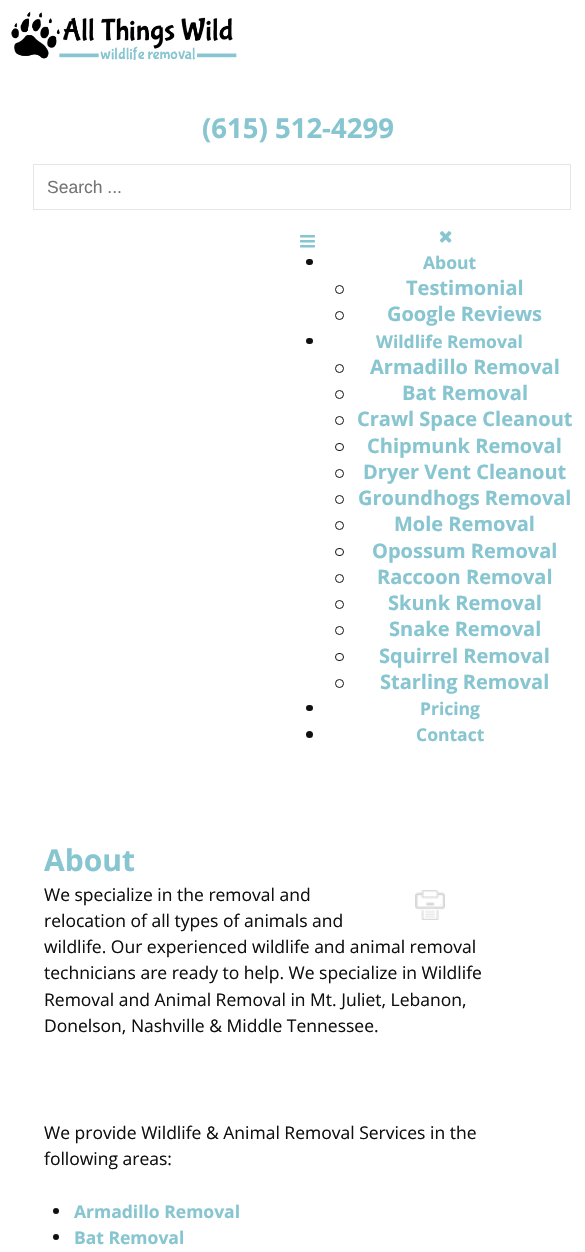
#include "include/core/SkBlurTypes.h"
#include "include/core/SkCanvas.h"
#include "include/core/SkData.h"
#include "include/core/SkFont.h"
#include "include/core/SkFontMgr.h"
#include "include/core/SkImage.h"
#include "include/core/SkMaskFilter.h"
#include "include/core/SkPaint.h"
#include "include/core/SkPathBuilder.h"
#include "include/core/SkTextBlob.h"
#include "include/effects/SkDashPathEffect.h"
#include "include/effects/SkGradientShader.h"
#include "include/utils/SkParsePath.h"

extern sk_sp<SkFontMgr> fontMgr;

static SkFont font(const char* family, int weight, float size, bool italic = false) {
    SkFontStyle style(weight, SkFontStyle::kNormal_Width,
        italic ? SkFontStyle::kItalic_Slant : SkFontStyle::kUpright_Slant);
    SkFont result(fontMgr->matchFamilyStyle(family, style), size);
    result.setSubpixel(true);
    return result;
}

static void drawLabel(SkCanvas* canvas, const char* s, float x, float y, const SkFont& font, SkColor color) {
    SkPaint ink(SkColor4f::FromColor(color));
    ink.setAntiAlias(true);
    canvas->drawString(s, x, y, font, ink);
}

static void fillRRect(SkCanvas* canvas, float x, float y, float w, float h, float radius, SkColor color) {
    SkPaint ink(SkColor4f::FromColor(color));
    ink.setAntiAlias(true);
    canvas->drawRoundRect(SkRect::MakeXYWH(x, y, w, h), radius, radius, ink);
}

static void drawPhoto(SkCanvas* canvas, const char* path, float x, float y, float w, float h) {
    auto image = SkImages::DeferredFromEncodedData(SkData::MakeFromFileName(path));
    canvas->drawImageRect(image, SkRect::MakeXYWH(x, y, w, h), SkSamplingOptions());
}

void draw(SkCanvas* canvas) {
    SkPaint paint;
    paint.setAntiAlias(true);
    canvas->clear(0xFFFFFFFF);
    drawPhoto(canvas, "assets/img1.png", 11, 11, 226, 49);
    SkFont font1 = font("Open Sans", 700, 27.5f);
    drawLabel(canvas, "(615) 512-4299", 202, 138, font1, 0xFF87C5D0);
    paint.setStroke(true);
    paint.setStrokeWidth(1);
    paint.setColor(0xFFE6E6E6);
    canvas->drawRect(SkRect::MakeXYWH(33.5f, 164.5f, 537, 45), paint);
    SkFont font2 = font("Liberation Sans", 400, 17.5f);
    drawLabel(canvas, "Search ...", 47, 193, font2, 0xFF757575);
    drawPhoto(canvas, "assets/img2.png", 300, 235, 15, 13);
    drawPhoto(canvas, "assets/img3.png", 439, 231, 13, 12);
    fillRRect(canvas, 306, 259, 7, 6, 3, 0xFF101010);
    SkFont font3 = font("Open Sans", 700, 17.5f);
    drawLabel(canvas, "About", 423, 269, font3, 0xFF87C5D0);
    paint.setColor(0xFF101010);
    canvas->drawCircle(339.5f, 289.5f, 4, paint);
    SkFont font4 = font("Open Sans", 700, 20);
    drawLabel(canvas, "Testimonial", 406, 295, font4, 0xFF87C5D0);
    canvas->drawCircle(339.5f, 315.5f, 4, paint);
    drawLabel(canvas, "Google Reviews", 387, 321, font4, 0xFF87C5D0);
    fillRRect(canvas, 306, 338, 7, 6, 3, 0xFF101010);
    drawLabel(canvas, "Wildlife Removal", 376, 348, font3, 0xFF87C5D0);
    canvas->drawCircle(339.5f, 368.5f, 4, paint);
    drawLabel(canvas, "Armadillo Removal", 370, 374, font4, 0xFF87C5D0);
    canvas->drawCircle(339.5f, 394.5f, 4, paint);
    drawLabel(canvas, "Bat Removal", 402, 400, font4, 0xFF87C5D0);
    canvas->drawCircle(339.5f, 420.5f, 4, paint);
    drawLabel(canvas, "Crawl Space Cleanout", 357, 426, font4, 0xFF87C5D0);
    canvas->drawRoundRect(SkRect::MakeXYWH(335.5f, 443.5f, 8, 7), 3.5f, 3.5f, paint);
    drawLabel(canvas, "Chipmunk Removal", 367, 453, font4, 0xFF87C5D0);
    canvas->drawCircle(339.5f, 473.5f, 4, paint);
    drawLabel(canvas, "Dryer Vent Cleanout", 363, 479, font4, 0xFF87C5D0);
    canvas->drawCircle(339.5f, 499.5f, 4, paint);
    drawLabel(canvas, "Groundhogs Removal", 358, 505, font4, 0xFF87C5D0);
    canvas->drawCircle(339.5f, 525.5f, 4, paint);
    drawLabel(canvas, "Mole Removal", 394, 531, font4, 0xFF87C5D0);
    canvas->drawRoundRect(SkRect::MakeXYWH(335.5f, 548.5f, 8, 7), 3.5f, 3.5f, paint);
    drawLabel(canvas, "Opossum Removal", 372, 558, font4, 0xFF87C5D0);
    canvas->drawCircle(339.5f, 578.5f, 4, paint);
    drawLabel(canvas, "Raccoon Removal", 377, 584, font4, 0xFF87C5D0);
    canvas->drawCircle(339.5f, 604.5f, 4, paint);
    drawLabel(canvas, "Skunk Removal", 388, 610, font4, 0xFF87C5D0);
    canvas->drawCircle(339.5f, 630.5f, 4, paint);
    drawLabel(canvas, "Snake Removal", 389, 636, font4, 0xFF87C5D0);
    canvas->drawRoundRect(SkRect::MakeXYWH(335.5f, 653.5f, 8, 7), 3.5f, 3.5f, paint);
    drawLabel(canvas, "Squirrel Removal", 379, 663, font4, 0xFF87C5D0);
    canvas->drawCircle(339.5f, 683.5f, 4, paint);
    drawLabel(canvas, "Starling Removal", 380, 689, font4, 0xFF87C5D0);
    fillRRect(canvas, 306, 705, 7, 6, 3, 0xFF101010);
    drawLabel(canvas, "Pricing", 420, 715, font3, 0xFF87C5D0);
    paint.setStroke(false);
    canvas->drawCircle(309.5f, 734.5f, 3.5f, paint);
    drawLabel(canvas, "Contact", 416, 741, font3, 0xFF87C5D0);
    SkFont font5 = font("Open Sans", 700, 30);
    drawLabel(canvas, "About", 44, 871, font5, 0xFF87C5D0);
    SkFont font6 = font("Open Sans", 400, 17.5f);
    drawLabel(canvas, "We specialize in the removal and", 44, 901, font6, 0xFF101010);
    drawLabel(canvas, "relocation of all types of animals and", 44, 927, font6, 0xFF101010);
    drawLabel(canvas, "wildlife. Our experienced wildlife and animal removal", 44, 953, font6, 0xFF101010);
    drawLabel(canvas, "technicians are ready to help. We specialize in Wildlife", 44, 979, font6, 0xFF101010);
    drawLabel(canvas, "Removal and Animal Removal in Mt. Juliet, Lebanon,", 44, 1006, font6, 0xFF101010);
    drawLabel(canvas, "Donelson, Nashville & Middle Tennessee.", 44, 1032, font6, 0xFF101010);
    drawLabel(canvas, "We provide Wildlife & Animal Removal Services in the", 44, 1139, font6, 0xFF101010);
    drawLabel(canvas, "following areas:", 44, 1165, font6, 0xFF101010);
    canvas->drawCircle(56, 1211, 3, paint);
    drawLabel(canvas, "Armadillo Removal", 74, 1218, font3, 0xFF87C5D0);
    canvas->drawCircle(56, 1237, 3, paint);
    drawLabel(canvas, "Bat Removal", 74, 1244, font3, 0xFF87C5D0);
    drawPhoto(canvas, "assets/img4.png", 415, 890, 30, 30);
}
